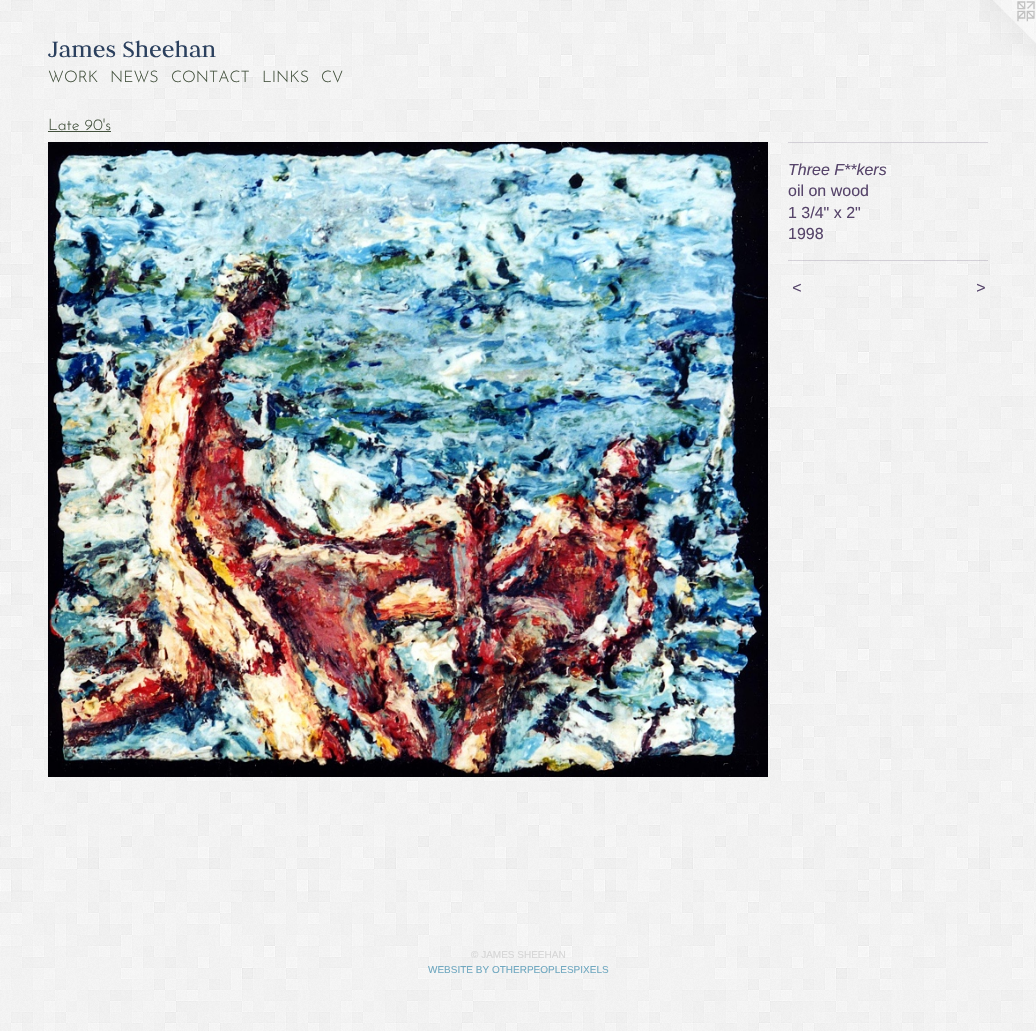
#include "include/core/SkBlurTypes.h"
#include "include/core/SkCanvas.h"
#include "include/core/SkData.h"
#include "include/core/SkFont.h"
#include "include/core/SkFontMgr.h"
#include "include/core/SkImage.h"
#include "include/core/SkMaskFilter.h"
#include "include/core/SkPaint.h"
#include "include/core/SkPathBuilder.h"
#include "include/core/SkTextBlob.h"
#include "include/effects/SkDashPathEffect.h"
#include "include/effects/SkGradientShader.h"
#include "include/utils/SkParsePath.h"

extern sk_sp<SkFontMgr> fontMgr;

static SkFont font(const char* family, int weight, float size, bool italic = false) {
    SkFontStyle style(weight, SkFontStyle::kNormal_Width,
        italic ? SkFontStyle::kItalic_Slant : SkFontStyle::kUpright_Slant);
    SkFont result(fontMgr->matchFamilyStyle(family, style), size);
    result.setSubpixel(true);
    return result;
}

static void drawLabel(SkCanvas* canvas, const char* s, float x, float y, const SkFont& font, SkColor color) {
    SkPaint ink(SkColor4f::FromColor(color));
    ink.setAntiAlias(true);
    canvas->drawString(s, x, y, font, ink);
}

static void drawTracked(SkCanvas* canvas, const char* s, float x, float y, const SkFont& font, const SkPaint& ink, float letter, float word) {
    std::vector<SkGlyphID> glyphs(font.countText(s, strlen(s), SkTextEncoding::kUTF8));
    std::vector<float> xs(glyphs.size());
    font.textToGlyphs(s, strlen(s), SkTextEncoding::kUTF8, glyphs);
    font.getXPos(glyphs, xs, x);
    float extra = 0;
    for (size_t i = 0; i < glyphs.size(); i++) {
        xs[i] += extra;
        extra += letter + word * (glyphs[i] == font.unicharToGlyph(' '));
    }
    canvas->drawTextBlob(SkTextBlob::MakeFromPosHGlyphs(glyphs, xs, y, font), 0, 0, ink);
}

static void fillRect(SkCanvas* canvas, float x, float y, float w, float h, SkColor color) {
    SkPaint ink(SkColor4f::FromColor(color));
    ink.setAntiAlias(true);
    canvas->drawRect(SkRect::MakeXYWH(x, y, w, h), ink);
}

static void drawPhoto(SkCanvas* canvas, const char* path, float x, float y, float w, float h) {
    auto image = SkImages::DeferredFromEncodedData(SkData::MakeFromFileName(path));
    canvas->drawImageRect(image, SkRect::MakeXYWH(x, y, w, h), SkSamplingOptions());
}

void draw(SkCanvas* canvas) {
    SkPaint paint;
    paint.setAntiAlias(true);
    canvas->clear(0xFFFFFFFF);
    drawPhoto(canvas, "assets/img1.png", 0, 0, 1036, 1031);
    SkFont font1 = font("Judson", 400, 26);
    drawLabel(canvas, "James Sheehan", 48, 57, font1, 0xFF2B405E);
    drawPhoto(canvas, "assets/img2.png", 980, 0, 56, 56);
    SkFont font2 = font("Josefin Sans", 100, 16);
    drawLabel(canvas, "WORK", 48, 82, font2, 0xFF43513D);
    drawLabel(canvas, "NEWS", 110, 82, font2, 0xFF43513D);
    drawLabel(canvas, "CONTACT", 171, 82, font2, 0xFF43513D);
    drawLabel(canvas, "LINKS", 262, 82, font2, 0xFF43513D);
    drawLabel(canvas, "CV", 321, 82, font2, 0xFF43513D);
    drawLabel(canvas, "Late 90's", 48, 130, font2, 0xFF43513D);
    fillRect(canvas, 48, 131, 63, 1, 0xFF43513D);
    drawPhoto(canvas, "assets/img3.png", 48, 142, 720, 635);
    fillRect(canvas, 788, 142, 200, 1, 0x3356446A);
    SkFont font3 = font("Liberation Sans", 400, 16, true);
    drawLabel(canvas, "Three F**kers", 788, 175, font3, 0xFF56446A);
    SkFont font4 = font("Liberation Sans", 400, 16);
    drawLabel(canvas, "oil on wood", 788, 196, font4, 0xFF56446A);
    drawLabel(canvas, "1 3/4\" x 2\"", 788, 218, font4, 0xFF56446A);
    drawLabel(canvas, "1998", 788, 239, font4, 0xFF56446A);
    fillRect(canvas, 788, 260, 200, 1, 0x3356446A);
    paint.setColor(0xFF56446A);
    drawTracked(canvas, "<", 792, 293, font3, paint, 1, 0);
    drawTracked(canvas, ">", 976, 293, font3, paint, 1, 0);
    SkFont font5 = font("Liberation Sans", 400, 10);
    drawLabel(canvas, "© JAMES SHEEHAN", 471, 958, font5, 0xFFD6D6D6);
    drawLabel(canvas, "WEBSITE BY OTHERPEOPLESPIXELS", 428, 973, font5, 0xFF70A8C0);
}
